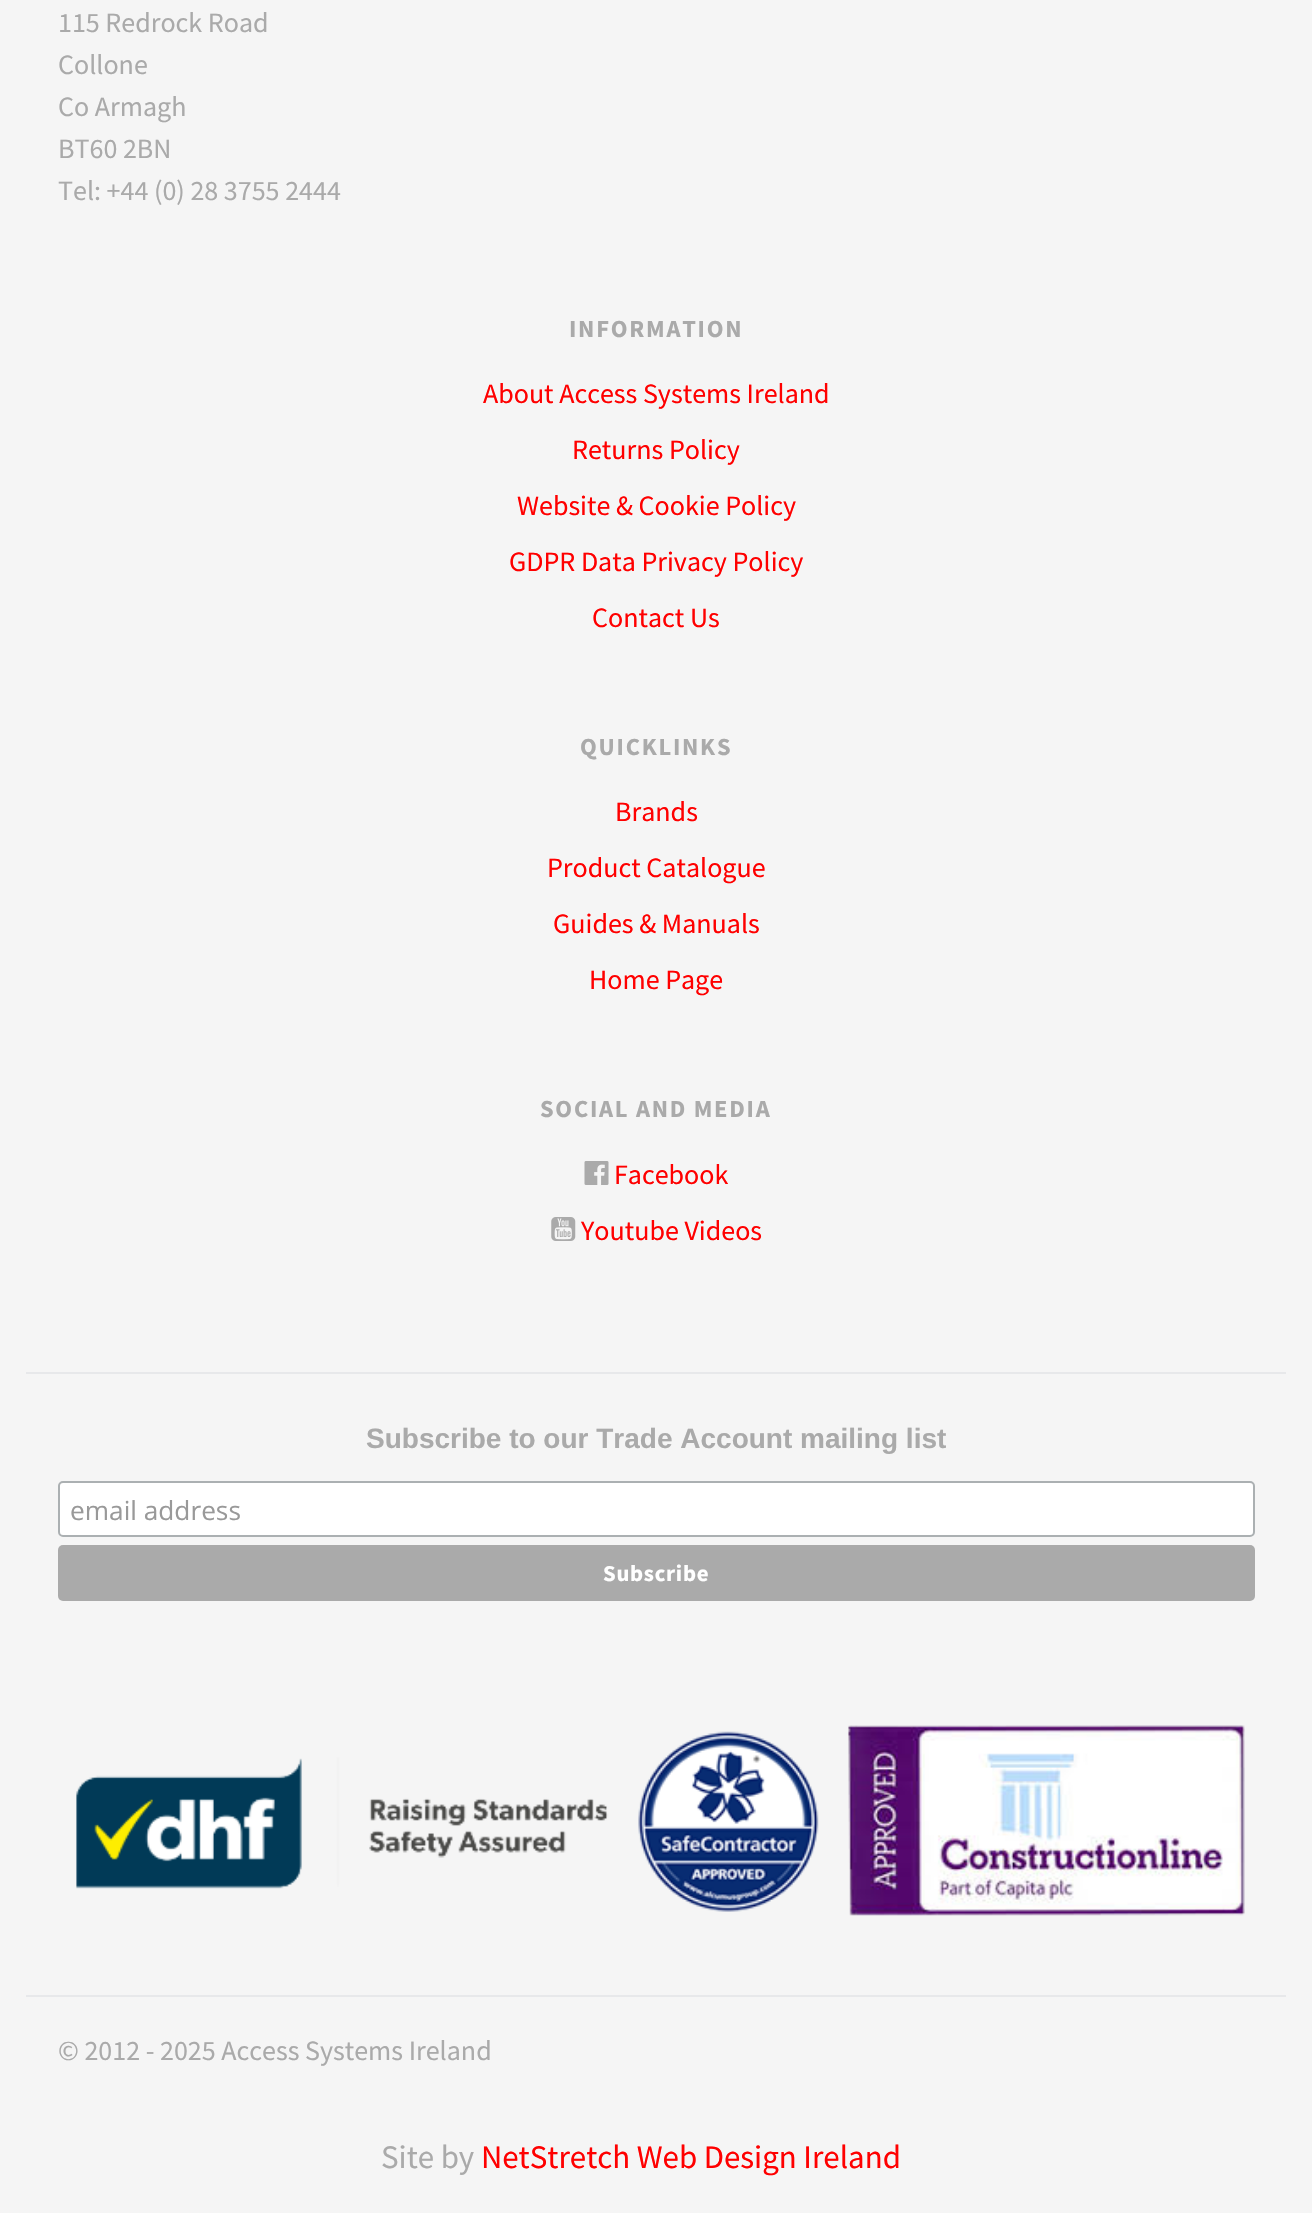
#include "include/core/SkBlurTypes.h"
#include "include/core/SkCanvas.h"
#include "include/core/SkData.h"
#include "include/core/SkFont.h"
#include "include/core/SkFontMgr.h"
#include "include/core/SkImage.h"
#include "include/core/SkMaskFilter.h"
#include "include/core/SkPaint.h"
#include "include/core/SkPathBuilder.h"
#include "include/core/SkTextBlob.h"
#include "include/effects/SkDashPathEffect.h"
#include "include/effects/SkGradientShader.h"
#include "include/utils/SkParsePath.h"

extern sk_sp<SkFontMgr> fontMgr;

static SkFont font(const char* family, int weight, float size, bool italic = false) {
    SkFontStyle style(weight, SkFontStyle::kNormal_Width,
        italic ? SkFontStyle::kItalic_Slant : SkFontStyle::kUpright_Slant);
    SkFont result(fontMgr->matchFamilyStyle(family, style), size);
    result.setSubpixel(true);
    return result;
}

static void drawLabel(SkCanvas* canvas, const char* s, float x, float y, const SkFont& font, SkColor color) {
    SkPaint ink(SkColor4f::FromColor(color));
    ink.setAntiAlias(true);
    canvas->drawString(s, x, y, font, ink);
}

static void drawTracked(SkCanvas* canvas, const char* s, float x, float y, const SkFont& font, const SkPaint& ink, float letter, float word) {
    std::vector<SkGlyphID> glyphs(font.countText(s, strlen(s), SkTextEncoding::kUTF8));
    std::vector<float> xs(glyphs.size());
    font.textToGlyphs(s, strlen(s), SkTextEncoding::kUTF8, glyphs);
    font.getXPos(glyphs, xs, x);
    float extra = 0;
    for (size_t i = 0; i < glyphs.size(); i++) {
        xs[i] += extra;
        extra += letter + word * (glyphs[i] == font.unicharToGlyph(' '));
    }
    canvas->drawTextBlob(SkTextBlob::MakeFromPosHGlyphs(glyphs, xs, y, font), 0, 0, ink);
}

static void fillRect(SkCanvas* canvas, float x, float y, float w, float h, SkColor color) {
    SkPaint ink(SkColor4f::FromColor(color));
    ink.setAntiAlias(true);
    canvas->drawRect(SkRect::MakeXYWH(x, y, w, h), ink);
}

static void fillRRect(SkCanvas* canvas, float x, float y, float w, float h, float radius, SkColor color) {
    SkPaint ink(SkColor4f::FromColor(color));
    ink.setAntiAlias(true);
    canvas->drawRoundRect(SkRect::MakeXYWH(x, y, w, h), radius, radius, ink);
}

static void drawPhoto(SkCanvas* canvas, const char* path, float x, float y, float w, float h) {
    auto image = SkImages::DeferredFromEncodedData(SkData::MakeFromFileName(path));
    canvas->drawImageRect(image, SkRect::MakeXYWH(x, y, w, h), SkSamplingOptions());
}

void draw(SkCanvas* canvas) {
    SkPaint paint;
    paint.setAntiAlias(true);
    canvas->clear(0xFFF5F5F5);
    fillRect(canvas, 26, 1372, 1260, 2, 0xFFE7E8EA);
    SkFont font1 = font("Source Sans Pro", 400, 28);
    drawLabel(canvas, "115 Redrock Road", 58, 32, font1, 0xFFAAAAAA);
    drawLabel(canvas, "Collone", 58, 74, font1, 0xFFAAAAAA);
    drawLabel(canvas, "Co Armagh", 58, 116, font1, 0xFFAAAAAA);
    drawLabel(canvas, "BT60 2BN", 58, 158, font1, 0xFFAAAAAA);
    drawLabel(canvas, "Tel: +44 (0) 28 3755 2444", 58, 200, font1, 0xFFAAAAAA);
    SkFont font2 = font("Source Sans Pro", 700, 24.5f);
    paint.setColor(0xFFAAAAAA);
    drawTracked(canvas, "INFORMATION", 569, 337, font2, paint, 1.75f, 0);
    drawLabel(canvas, "About Access Systems Ireland", 483, 403, font1, 0xFFFF0000);
    drawLabel(canvas, "Returns Policy", 572, 459, font1, 0xFFFF0000);
    drawLabel(canvas, "Website & Cookie Policy", 517, 515, font1, 0xFFFF0000);
    drawLabel(canvas, "GDPR Data Privacy Policy", 509, 571, font1, 0xFFFF0000);
    drawLabel(canvas, "Contact Us", 592, 627, font1, 0xFFFF0000);
    drawTracked(canvas, "QUICKLINKS", 580, 755, font2, paint, 1.75f, 0);
    drawLabel(canvas, "Brands", 615, 821, font1, 0xFFFF0000);
    drawLabel(canvas, "Product Catalogue", 547, 877, font1, 0xFFFF0000);
    drawLabel(canvas, "Guides & Manuals", 553, 933, font1, 0xFFFF0000);
    drawLabel(canvas, "Home Page", 589, 989, font1, 0xFFFF0000);
    drawTracked(canvas, "SOCIAL AND MEDIA", 540, 1117, font2, paint, 1.75f, 0);
    drawPhoto(canvas, "assets/img1.png", 584, 1161, 25, 24);
    drawLabel(canvas, "Facebook", 614, 1184, font1, 0xFFFF0000);
    drawPhoto(canvas, "assets/img2.png", 551, 1217, 25, 24);
    drawLabel(canvas, "Youtube Videos", 581, 1240, font1, 0xFFFF0000);
    fillRect(canvas, 26, 1995, 1260, 2, 0xFFE7E8EA);
    SkFont font3 = font("Liberation Sans", 700, 28);
    drawLabel(canvas, "Subscribe to our Trade Account mailing list", 366, 1448, font3, 0xFFAAAAAA);
    paint.setColor(0xFFFFFFFF);
    canvas->drawRoundRect(SkRect::MakeXYWH(59, 1482, 1195, 54), 4, 4, paint);
    paint.setStroke(true);
    paint.setStrokeWidth(2);
    paint.setColor(0xFFABB0B2);
    canvas->drawRoundRect(SkRect::MakeXYWH(59, 1482, 1195, 54), 4, 4, paint);
    SkFont font4 = font("Open Sans", 400, 26.25f);
    drawLabel(canvas, "email address", 70, 1520, font4, 0xFF999999);
    fillRRect(canvas, 58, 1545, 1197, 56, 5, 0xFFAAAAAA);
    SkFont font5 = font("Source Sans Pro", 700, 22.75f);
    paint.setStroke(false);
    paint.setColor(0xFFFFFFFF);
    drawTracked(canvas, "Subscribe", 603, 1581, font5, paint, 0.75f, 0);
    drawPhoto(canvas, "assets/img3.png", 76, 1725, 1169, 191);
    drawLabel(canvas, "© 2012 - 2025 Access Systems Ireland", 58, 2060, font1, 0xFFAAAAAA);
    SkFont font6 = font("Source Sans Pro", 400, 32.9f);
    drawLabel(canvas, "Site by", 381, 2168, font6, 0xFFAAAAAA);
    drawLabel(canvas, "NetStretch Web Design Ireland", 481, 2168, font6, 0xFFFF0000);
}
